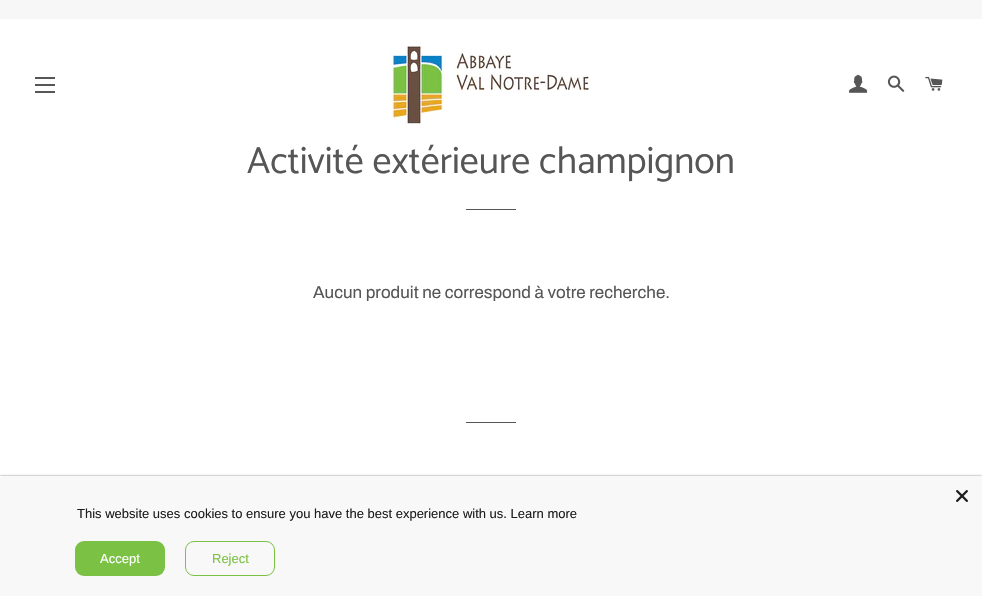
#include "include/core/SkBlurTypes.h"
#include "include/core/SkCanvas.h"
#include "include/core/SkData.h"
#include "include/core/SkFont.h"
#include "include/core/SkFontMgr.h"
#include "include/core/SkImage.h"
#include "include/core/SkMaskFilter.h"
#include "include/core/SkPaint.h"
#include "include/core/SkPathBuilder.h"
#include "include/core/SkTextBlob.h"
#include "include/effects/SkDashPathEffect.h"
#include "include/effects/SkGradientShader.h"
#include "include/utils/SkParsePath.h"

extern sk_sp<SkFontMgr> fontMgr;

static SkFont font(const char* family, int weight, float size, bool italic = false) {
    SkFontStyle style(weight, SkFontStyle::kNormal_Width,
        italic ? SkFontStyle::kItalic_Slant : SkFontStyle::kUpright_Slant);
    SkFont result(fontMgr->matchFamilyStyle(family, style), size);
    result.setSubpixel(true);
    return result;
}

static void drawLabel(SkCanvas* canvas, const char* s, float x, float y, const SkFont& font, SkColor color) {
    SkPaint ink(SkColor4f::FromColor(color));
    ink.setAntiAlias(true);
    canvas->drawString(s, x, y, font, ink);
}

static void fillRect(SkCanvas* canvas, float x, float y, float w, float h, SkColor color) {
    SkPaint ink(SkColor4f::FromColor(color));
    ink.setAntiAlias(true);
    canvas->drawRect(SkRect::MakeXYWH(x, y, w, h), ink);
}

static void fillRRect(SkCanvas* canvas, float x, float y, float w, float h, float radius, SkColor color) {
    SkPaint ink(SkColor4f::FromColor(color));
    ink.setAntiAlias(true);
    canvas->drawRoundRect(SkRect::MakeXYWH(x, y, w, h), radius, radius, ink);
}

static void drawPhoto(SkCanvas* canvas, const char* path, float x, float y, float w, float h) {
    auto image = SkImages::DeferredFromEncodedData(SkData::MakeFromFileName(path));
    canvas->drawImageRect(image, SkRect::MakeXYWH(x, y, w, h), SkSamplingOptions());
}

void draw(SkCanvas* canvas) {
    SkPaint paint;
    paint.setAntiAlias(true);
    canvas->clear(0xFFFFFFFF);
    fillRect(canvas, 0, 0, 982, 19, 0xFFF7F7F7);
    fillRect(canvas, 35, 77, 20, 2, 0xFF565656);
    fillRect(canvas, 35, 84, 20, 2, 0xFF565656);
    fillRect(canvas, 35, 91, 20, 2, 0xFF565656);
    drawPhoto(canvas, "assets/img1.png", 389, 45, 200, 81);
    drawPhoto(canvas, "assets/img2.png", 849, 74, 19, 19);
    drawPhoto(canvas, "assets/img3.png", 887, 75, 18, 17);
    drawPhoto(canvas, "assets/img4.png", 925, 76, 18, 15);
    SkFont font1 = font("Catamaran", 400, 38);
    drawLabel(canvas, "Activité extérieure champignon", 247, 173, font1, 0xFF565656);
    fillRect(canvas, 466, 209, 50, 1, 0xFF565656);
    SkFont font2 = font("Archivo", 400, 17);
    drawLabel(canvas, "Aucun produit ne correspond à votre recherche.", 313, 298, font2, 0xFF565656);
    fillRect(canvas, 466, 422, 50, 1, 0xFF565656);
    paint.setColor(0x80000000);
    paint.setMaskFilter(SkMaskFilter::MakeBlur(kNormal_SkBlurStyle, 1));
    canvas->drawRect(SkRect::MakeXYWH(0, 476, 982, 120), paint);
    paint.setMaskFilter(nullptr);
    fillRect(canvas, 0, 476, 982, 120, 0xFFF8F8F8);
    drawPhoto(canvas, "assets/img5.png", 956, 490, 12, 12);
    SkFont font3 = font("Liberation Sans", 400, 13);
    drawLabel(canvas, "This website uses cookies to ensure you have the best experience with us. Learn more", 77, 518, font3, 0xFF1D1D1D);
    fillRRect(canvas, 75, 541, 90, 35, 9, 0xFF7BC144);
    drawLabel(canvas, "Accept", 100, 563, font3, 0xFFFFFFFF);
    paint.setStroke(true);
    paint.setStrokeWidth(1);
    paint.setColor(0xFF7BC144);
    canvas->drawRoundRect(SkRect::MakeXYWH(185.5f, 541.5f, 89, 34), 8.5f, 8.5f, paint);
    drawLabel(canvas, "Reject", 212, 563, font3, 0xFF7BC144);
}
